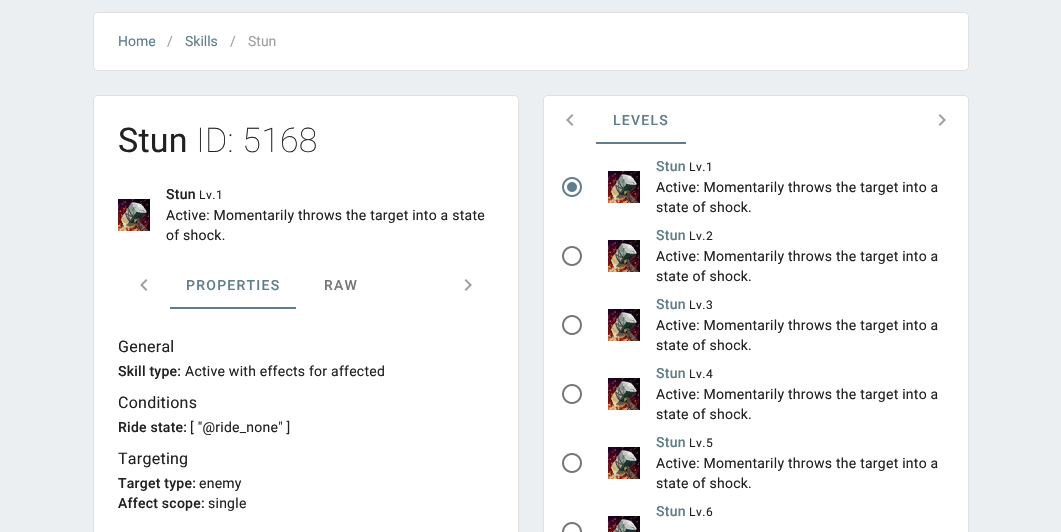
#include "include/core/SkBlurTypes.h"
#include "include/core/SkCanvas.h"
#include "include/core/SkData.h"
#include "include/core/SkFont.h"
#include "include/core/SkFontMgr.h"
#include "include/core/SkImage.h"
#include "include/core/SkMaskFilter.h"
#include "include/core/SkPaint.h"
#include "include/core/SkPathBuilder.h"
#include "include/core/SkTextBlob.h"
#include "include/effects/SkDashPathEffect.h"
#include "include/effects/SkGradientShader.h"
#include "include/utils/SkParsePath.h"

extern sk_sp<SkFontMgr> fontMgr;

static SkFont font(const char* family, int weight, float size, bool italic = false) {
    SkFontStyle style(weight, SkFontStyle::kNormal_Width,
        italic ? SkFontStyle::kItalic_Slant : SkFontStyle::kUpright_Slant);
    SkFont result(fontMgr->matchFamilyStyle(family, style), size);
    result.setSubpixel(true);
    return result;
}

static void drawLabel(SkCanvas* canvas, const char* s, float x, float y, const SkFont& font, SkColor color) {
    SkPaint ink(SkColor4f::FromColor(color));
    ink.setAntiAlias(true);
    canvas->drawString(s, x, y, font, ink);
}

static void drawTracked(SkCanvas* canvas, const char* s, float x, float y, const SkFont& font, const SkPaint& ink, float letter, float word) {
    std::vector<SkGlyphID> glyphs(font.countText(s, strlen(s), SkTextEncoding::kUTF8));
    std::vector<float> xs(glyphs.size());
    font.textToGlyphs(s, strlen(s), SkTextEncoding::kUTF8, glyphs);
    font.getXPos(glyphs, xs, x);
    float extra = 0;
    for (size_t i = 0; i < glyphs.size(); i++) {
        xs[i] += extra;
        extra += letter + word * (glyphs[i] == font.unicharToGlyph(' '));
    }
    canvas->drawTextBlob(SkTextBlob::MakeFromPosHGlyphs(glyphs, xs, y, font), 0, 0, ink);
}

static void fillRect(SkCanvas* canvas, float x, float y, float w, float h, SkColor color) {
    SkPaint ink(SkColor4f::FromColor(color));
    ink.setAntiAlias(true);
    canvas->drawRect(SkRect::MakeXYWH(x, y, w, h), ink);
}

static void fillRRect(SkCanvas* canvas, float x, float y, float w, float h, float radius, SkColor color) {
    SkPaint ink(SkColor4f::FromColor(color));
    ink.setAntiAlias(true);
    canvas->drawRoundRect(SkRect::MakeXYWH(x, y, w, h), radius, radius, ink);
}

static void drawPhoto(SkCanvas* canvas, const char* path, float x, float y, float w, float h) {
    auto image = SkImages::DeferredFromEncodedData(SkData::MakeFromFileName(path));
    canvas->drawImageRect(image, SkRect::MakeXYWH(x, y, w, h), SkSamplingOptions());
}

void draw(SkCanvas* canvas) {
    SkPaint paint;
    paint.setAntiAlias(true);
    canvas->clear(0xFFECEFF1);
    fillRRect(canvas, 93, 12, 876, 59, 4, 0xFFFFFFFF);
    paint.setStroke(true);
    paint.setStrokeWidth(1);
    paint.setColor(0x1F000000);
    canvas->drawRoundRect(SkRect::MakeXYWH(93.5f, 12.5f, 875, 58), 3.5f, 3.5f, paint);
    SkFont font1 = font("Roboto", 400, 14);
    drawLabel(canvas, "Home", 118, 46, font1, 0xFF607D8B);
    drawLabel(canvas, "/", 167, 46, font1, 0xFF9E9E9E);
    drawLabel(canvas, "Skills", 185, 46, font1, 0xFF607D8B);
    drawLabel(canvas, "/", 230, 46, font1, 0xFF9E9E9E);
    drawLabel(canvas, "Stun", 248, 46, font1, 0xFF9E9E9E);
    fillRRect(canvas, 93, 95, 426, 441, 4, 0xFFFFFFFF);
    canvas->drawRoundRect(SkRect::MakeXYWH(93.5f, 95.5f, 425, 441), 3.5f, 3.5f, paint);
    SkFont font2 = font("Roboto", 400, 34);
    paint.setStroke(false);
    paint.setColor(0xFF212121);
    drawTracked(canvas, "Stun", 118, 152, font2, paint, 0.25f, 0);
    SkFont font3 = font("Roboto", 100, 34);
    drawTracked(canvas, "ID: 5168", 196, 152, font3, paint, 0.25f, 0);
    drawPhoto(canvas, "assets/img1.png", 118, 199, 32, 32);
    SkFont font4 = font("Roboto", 500, 14);
    drawTracked(canvas, "Stun", 166, 199, font4, paint, 0.25f, 0);
    SkFont font5 = font("Roboto", 400, 12);
    drawTracked(canvas, "Lv.1", 199, 199, font5, paint, 0.5f, 0);
    drawTracked(canvas, "Active: Momentarily throws the target into a state", 166, 220, font1, paint, 0.25f, 0);
    drawTracked(canvas, "of shock.", 166, 240, font1, paint, 0.25f, 0);
    drawPhoto(canvas, "assets/img2.png", 140, 279, 8, 12);
    paint.setColor(0xFF607D8B);
    drawTracked(canvas, "PROPERTIES", 186, 290, font4, paint, 1.25f, 0);
    paint.setColor(0xFF757575);
    drawTracked(canvas, "RAW", 324, 290, font4, paint, 1.25f, 0);
    fillRect(canvas, 170, 307, 126, 2, 0xFF607D8B);
    drawPhoto(canvas, "assets/img3.png", 464, 279, 8, 12);
    SkFont font6 = font("Roboto", 400, 16);
    paint.setColor(0xFF212121);
    drawTracked(canvas, "General", 118, 352, font6, paint, 0.25f, 0);
    drawTracked(canvas, "Skill type:", 118, 376, font4, paint, 0.25f, 0);
    drawTracked(canvas, "Active with effects for affected", 185, 376, font1, paint, 0.25f, 0);
    drawTracked(canvas, "Conditions", 118, 408, font6, paint, 0.25f, 0);
    drawTracked(canvas, "Ride state:", 118, 432, font4, paint, 0.25f, 0);
    drawTracked(canvas, "[ \"@ride_none\" ]", 190, 432, font1, paint, 0.25f, 0);
    drawTracked(canvas, "Targeting", 118, 464, font6, paint, 0.25f, 0);
    drawTracked(canvas, "Target type:", 118, 488, font4, paint, 0.25f, 0);
    drawTracked(canvas, "enemy", 199, 488, font1, paint, 0.25f, 0);
    drawTracked(canvas, "Affect scope:", 118, 508, font4, paint, 0.25f, 0);
    drawTracked(canvas, "single", 208, 508, font1, paint, 0.25f, 0);
    fillRRect(canvas, 543, 95, 426, 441, 4, 0xFFFFFFFF);
    paint.setStroke(true);
    paint.setColor(0x1F000000);
    canvas->drawRoundRect(SkRect::MakeXYWH(543.5f, 95.5f, 425, 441), 3.5f, 3.5f, paint);
    drawPhoto(canvas, "assets/img2.png", 566, 114, 8, 12);
    paint.setStroke(false);
    paint.setColor(0xFF607D8B);
    drawTracked(canvas, "LEVELS", 613, 125, font4, paint, 1.25f, 0);
    fillRect(canvas, 596, 142, 90, 2, 0xFF607D8B);
    drawPhoto(canvas, "assets/img3.png", 938, 114, 8, 12);
    drawPhoto(canvas, "assets/img4.png", 562, 177, 20, 20);
    drawPhoto(canvas, "assets/img1.png", 608, 171, 32, 32);
    drawTracked(canvas, "Stun", 656, 171, font4, paint, 0.25f, 0);
    paint.setColor(0xFF212121);
    drawTracked(canvas, "Lv.1", 689, 171, font5, paint, 0.5f, 0);
    drawTracked(canvas, "Active: Momentarily throws the target into a", 656, 192, font1, paint, 0.25f, 0);
    drawTracked(canvas, "state of shock.", 656, 212, font1, paint, 0.25f, 0);
    drawPhoto(canvas, "assets/img5.png", 562, 246, 20, 20);
    drawPhoto(canvas, "assets/img1.png", 608, 240, 32, 32);
    paint.setColor(0xFF607D8B);
    drawTracked(canvas, "Stun", 656, 240, font4, paint, 0.25f, 0);
    paint.setColor(0xFF212121);
    drawTracked(canvas, "Lv.2", 689, 240, font5, paint, 0.5f, 0);
    drawTracked(canvas, "Active: Momentarily throws the target into a", 656, 261, font1, paint, 0.25f, 0);
    drawTracked(canvas, "state of shock.", 656, 281, font1, paint, 0.25f, 0);
    drawPhoto(canvas, "assets/img5.png", 562, 315, 20, 20);
    drawPhoto(canvas, "assets/img1.png", 608, 309, 32, 32);
    paint.setColor(0xFF607D8B);
    drawTracked(canvas, "Stun", 656, 309, font4, paint, 0.25f, 0);
    paint.setColor(0xFF212121);
    drawTracked(canvas, "Lv.3", 689, 309, font5, paint, 0.5f, 0);
    drawTracked(canvas, "Active: Momentarily throws the target into a", 656, 330, font1, paint, 0.25f, 0);
    drawTracked(canvas, "state of shock.", 656, 350, font1, paint, 0.25f, 0);
    drawPhoto(canvas, "assets/img5.png", 562, 384, 20, 20);
    drawPhoto(canvas, "assets/img1.png", 608, 378, 32, 32);
    paint.setColor(0xFF607D8B);
    drawTracked(canvas, "Stun", 656, 378, font4, paint, 0.25f, 0);
    paint.setColor(0xFF212121);
    drawTracked(canvas, "Lv.4", 689, 378, font5, paint, 0.5f, 0);
    drawTracked(canvas, "Active: Momentarily throws the target into a", 656, 399, font1, paint, 0.25f, 0);
    drawTracked(canvas, "state of shock.", 656, 419, font1, paint, 0.25f, 0);
    drawPhoto(canvas, "assets/img5.png", 562, 453, 20, 20);
    drawPhoto(canvas, "assets/img1.png", 608, 447, 32, 32);
    paint.setColor(0xFF607D8B);
    drawTracked(canvas, "Stun", 656, 447, font4, paint, 0.25f, 0);
    paint.setColor(0xFF212121);
    drawTracked(canvas, "Lv.5", 689, 447, font5, paint, 0.5f, 0);
    drawTracked(canvas, "Active: Momentarily throws the target into a", 656, 468, font1, paint, 0.25f, 0);
    drawTracked(canvas, "state of shock.", 656, 488, font1, paint, 0.25f, 0);
    paint.setColor(0xFF607D8B);
    drawTracked(canvas, "Stun", 656, 516, font4, paint, 0.25f, 0);
    paint.setColor(0xFF212121);
    drawTracked(canvas, "Lv.6", 689, 516, font5, paint, 0.5f, 0);
    drawPhoto(canvas, "assets/img6.png", 608, 516, 32, 16);
    drawPhoto(canvas, "assets/img7.png", 562, 522, 20, 10);
}
